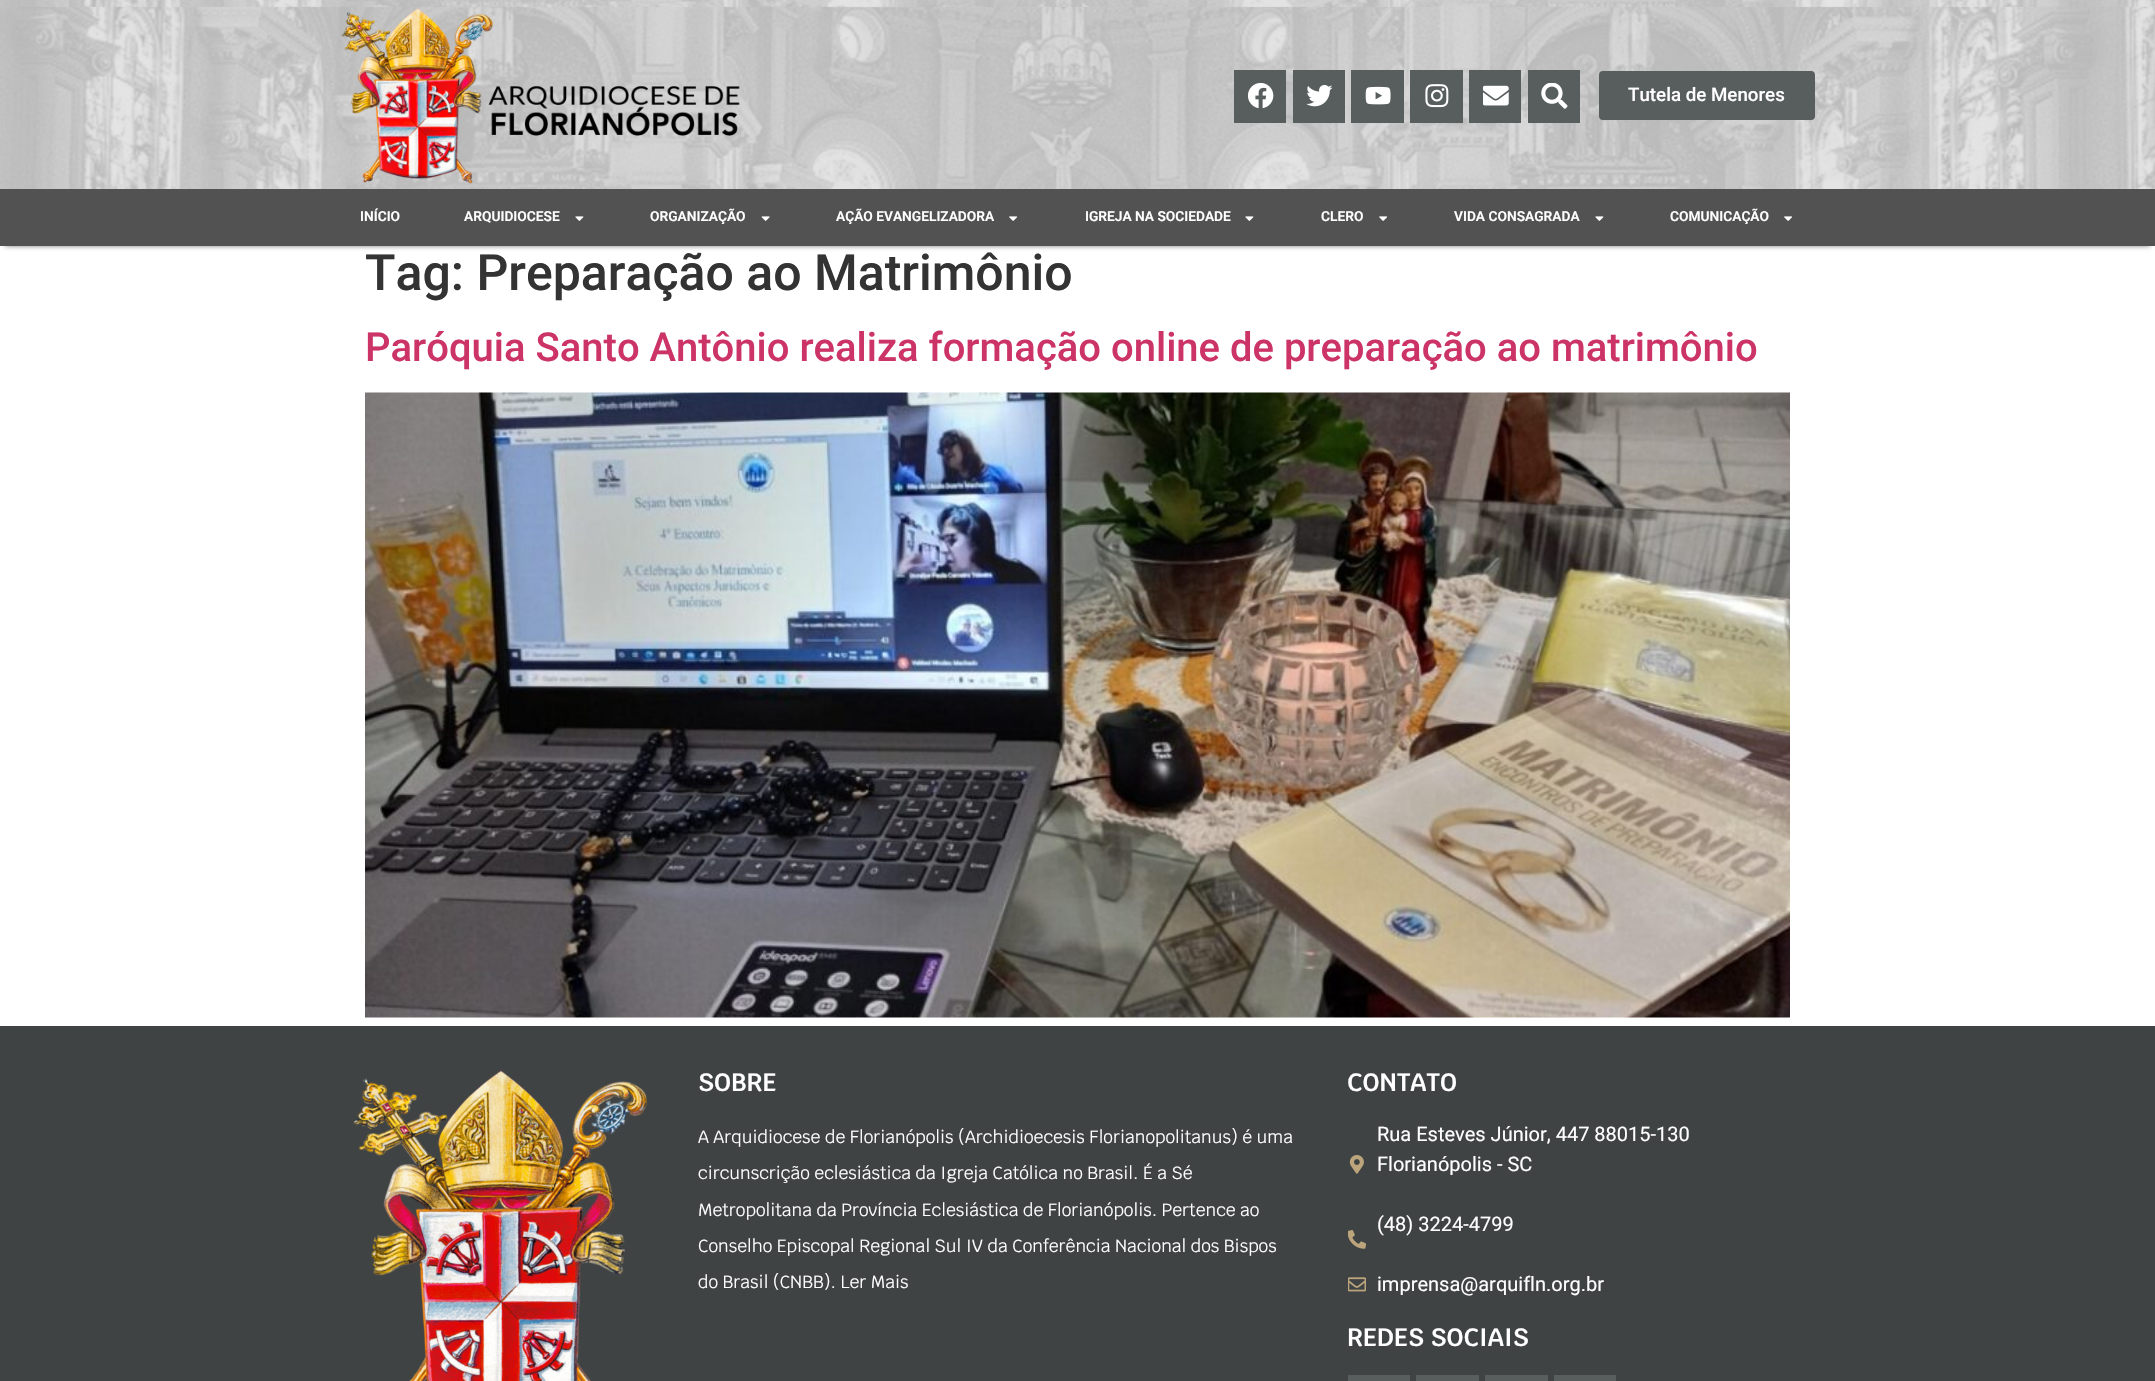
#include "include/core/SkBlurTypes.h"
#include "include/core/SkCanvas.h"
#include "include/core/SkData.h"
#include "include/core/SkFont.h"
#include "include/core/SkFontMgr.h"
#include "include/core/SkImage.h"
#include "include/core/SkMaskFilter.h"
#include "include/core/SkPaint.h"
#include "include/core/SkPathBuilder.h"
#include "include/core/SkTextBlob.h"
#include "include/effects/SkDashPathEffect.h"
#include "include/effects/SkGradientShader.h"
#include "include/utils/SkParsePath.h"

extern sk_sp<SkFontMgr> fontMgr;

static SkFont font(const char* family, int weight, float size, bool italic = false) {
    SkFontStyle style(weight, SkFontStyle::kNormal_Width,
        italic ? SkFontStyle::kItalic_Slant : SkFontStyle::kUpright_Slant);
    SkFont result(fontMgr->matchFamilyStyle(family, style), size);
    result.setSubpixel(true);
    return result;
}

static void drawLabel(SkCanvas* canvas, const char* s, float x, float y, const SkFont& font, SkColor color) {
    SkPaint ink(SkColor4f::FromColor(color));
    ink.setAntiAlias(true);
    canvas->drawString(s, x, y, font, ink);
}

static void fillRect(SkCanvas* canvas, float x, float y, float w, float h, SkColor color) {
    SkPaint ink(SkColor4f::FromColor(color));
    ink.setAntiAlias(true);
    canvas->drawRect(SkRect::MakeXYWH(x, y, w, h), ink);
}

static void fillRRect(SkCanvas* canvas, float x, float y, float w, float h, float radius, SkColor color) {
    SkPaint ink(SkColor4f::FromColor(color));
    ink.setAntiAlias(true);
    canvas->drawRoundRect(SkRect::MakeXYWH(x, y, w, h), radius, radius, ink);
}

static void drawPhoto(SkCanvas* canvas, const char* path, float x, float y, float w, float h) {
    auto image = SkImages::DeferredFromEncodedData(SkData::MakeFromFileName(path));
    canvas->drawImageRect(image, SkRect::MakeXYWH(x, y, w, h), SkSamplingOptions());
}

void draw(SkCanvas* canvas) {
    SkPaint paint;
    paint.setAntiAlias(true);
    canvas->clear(0xFFFFFFFF);
    drawPhoto(canvas, "assets/img1.png", 0, 0, 2155, 189);
    drawPhoto(canvas, "assets/img2.png", 341, 8, 399, 176);
    fillRect(canvas, 1234, 70, 52, 53, 0xFF585D5E);
    drawPhoto(canvas, "assets/img3.png", 1248, 83, 26, 26);
    fillRect(canvas, 1293, 70, 52, 53, 0xFF585D5E);
    drawPhoto(canvas, "assets/img4.png", 1306, 85, 27, 22);
    fillRect(canvas, 1351, 70, 53, 53, 0xFF585D5E);
    drawPhoto(canvas, "assets/img5.png", 1365, 86, 26, 19);
    fillRect(canvas, 1410, 70, 53, 53, 0xFF585D5E);
    drawPhoto(canvas, "assets/img6.png", 1425, 84, 24, 24);
    fillRect(canvas, 1469, 70, 52, 53, 0xFF585D5E);
    drawPhoto(canvas, "assets/img7.png", 1483, 85, 26, 21);
    fillRect(canvas, 1528, 70, 52, 53, 0xFF585D5E);
    drawPhoto(canvas, "assets/img8.png", 1541, 83, 27, 26);
    fillRRect(canvas, 1599, 71, 216, 49, 4, 0xFF585D5E);
    SkFont font1 = font("Roboto", 500, 18.75f);
    drawLabel(canvas, "Tutela de Menores", 1628, 101, font1, 0xFFFFFFFF);
    paint.setColor(0x80000000);
    paint.setMaskFilter(SkMaskFilter::MakeBlur(kNormal_SkBlurStyle, 2.5f));
    canvas->drawRect(SkRect::MakeXYWH(5, 199, 2145, 47), paint);
    paint.setMaskFilter(nullptr);
    fillRect(canvas, 0, 189, 2155, 57, 0xFF525252);
    SkFont font2 = font("Roboto", 600, 13.75f);
    drawLabel(canvas, "INÍCIO", 360, 221, font2, 0xFFFFFFFF);
    drawLabel(canvas, "ARQUIDIOCESE", 464, 221, font2, 0xFFFFFFFF);
    drawPhoto(canvas, "assets/img9.png", 575, 216, 9, 5);
    drawLabel(canvas, "ORGANIZAÇÃO", 650, 221, font2, 0xFFFFFFFF);
    drawPhoto(canvas, "assets/img10.png", 761, 216, 9, 5);
    drawLabel(canvas, "AÇÃO EVANGELIZADORA", 836, 221, font2, 0xFFFFFFFF);
    drawPhoto(canvas, "assets/img11.png", 1009, 216, 9, 5);
    drawLabel(canvas, "IGREJA NA SOCIEDADE", 1085, 221, font2, 0xFFFFFFFF);
    drawPhoto(canvas, "assets/img9.png", 1245, 216, 9, 5);
    drawLabel(canvas, "CLERO", 1321, 221, font2, 0xFFFFFFFF);
    drawPhoto(canvas, "assets/img11.png", 1379, 216, 9, 5);
    drawLabel(canvas, "VIDA CONSAGRADA", 1454, 221, font2, 0xFFFFFFFF);
    drawPhoto(canvas, "assets/img9.png", 1595, 216, 9, 5);
    drawLabel(canvas, "COMUNICAÇÃO", 1670, 221, font2, 0xFFFFFFFF);
    drawPhoto(canvas, "assets/img11.png", 1784, 216, 9, 5);
    SkFont font3 = font("Roboto", 500, 50);
    drawLabel(canvas, "Tag: Preparação ao Matrimônio", 365, 290, font3, 0xFF333333);
    SkFont font4 = font("Roboto", 500, 40);
    drawLabel(canvas, "Paróquia Santo Antônio realiza formação online de preparação ao matrimônio", 365, 361, font4, 0xFFCC3366);
    drawPhoto(canvas, "assets/img12.png", 365, 392, 1425, 626);
    fillRect(canvas, 0, 1026, 2155, 355, 0xFF404344);
    drawPhoto(canvas, "assets/img13.png", 353, 1070, 294, 311);
    SkFont font5 = font("Krub", 600, 25);
    drawLabel(canvas, "SOBRE", 698, 1091, font5, 0xFFFFFFFF);
    SkFont font6 = font("Krub", 400, 17.5f);
    drawLabel(canvas, "A Arquidiocese de Florianópolis (Archidioecesis Florianopolitanus) é uma", 698, 1143, font6, 0xFFFFFFFF);
    drawLabel(canvas, "circunscrição eclesiástica da Igreja Católica no Brasil. É a Sé", 698, 1179, font6, 0xFFFFFFFF);
    drawLabel(canvas, "Metropolitana da Província Eclesiástica de Florianópolis. Pertence ao", 698, 1216, font6, 0xFFFFFFFF);
    drawLabel(canvas, "Conselho Episcopal Regional Sul IV da Conferência Nacional dos Bispos", 698, 1252, font6, 0xFFFFFFFF);
    drawLabel(canvas, "do Brasil (CNBB). Ler Mais", 698, 1288, font6, 0xFFFFFFFF);
    drawLabel(canvas, "CONTATO", 1347, 1091, font5, 0xFFFFFFFF);
    drawPhoto(canvas, "assets/img14.png", 1349, 1155, 15, 19);
    SkFont font7 = font("Roboto", 400, 20);
    drawLabel(canvas, "Rua Esteves Júnior, 447 88015-130", 1377, 1141, font7, 0xFFFFFFFF);
    drawLabel(canvas, "Florianópolis - SC", 1377, 1171, font7, 0xFFFFFFFF);
    drawLabel(canvas, "(48) 3224-4799", 1377, 1231, font7, 0xFFFFFFFF);
    drawPhoto(canvas, "assets/img15.png", 1348, 1230, 18, 19);
    drawPhoto(canvas, "assets/img16.png", 1348, 1277, 18, 15);
    drawLabel(canvas, "imprensa@arquifln.org.br", 1377, 1291, font7, 0xFFFFFFFF);
    drawLabel(canvas, "REDES SOCIAIS", 1347, 1346, font5, 0xFFFFFFFF);
    fillRect(canvas, 1348, 1375, 62, 6, 0xFF585D5E);
    fillRect(canvas, 1416, 1375, 63, 6, 0xFF585D5E);
    fillRect(canvas, 1485, 1375, 63, 6, 0xFF585D5E);
    fillRect(canvas, 1554, 1375, 62, 6, 0xFF585D5E);
}
